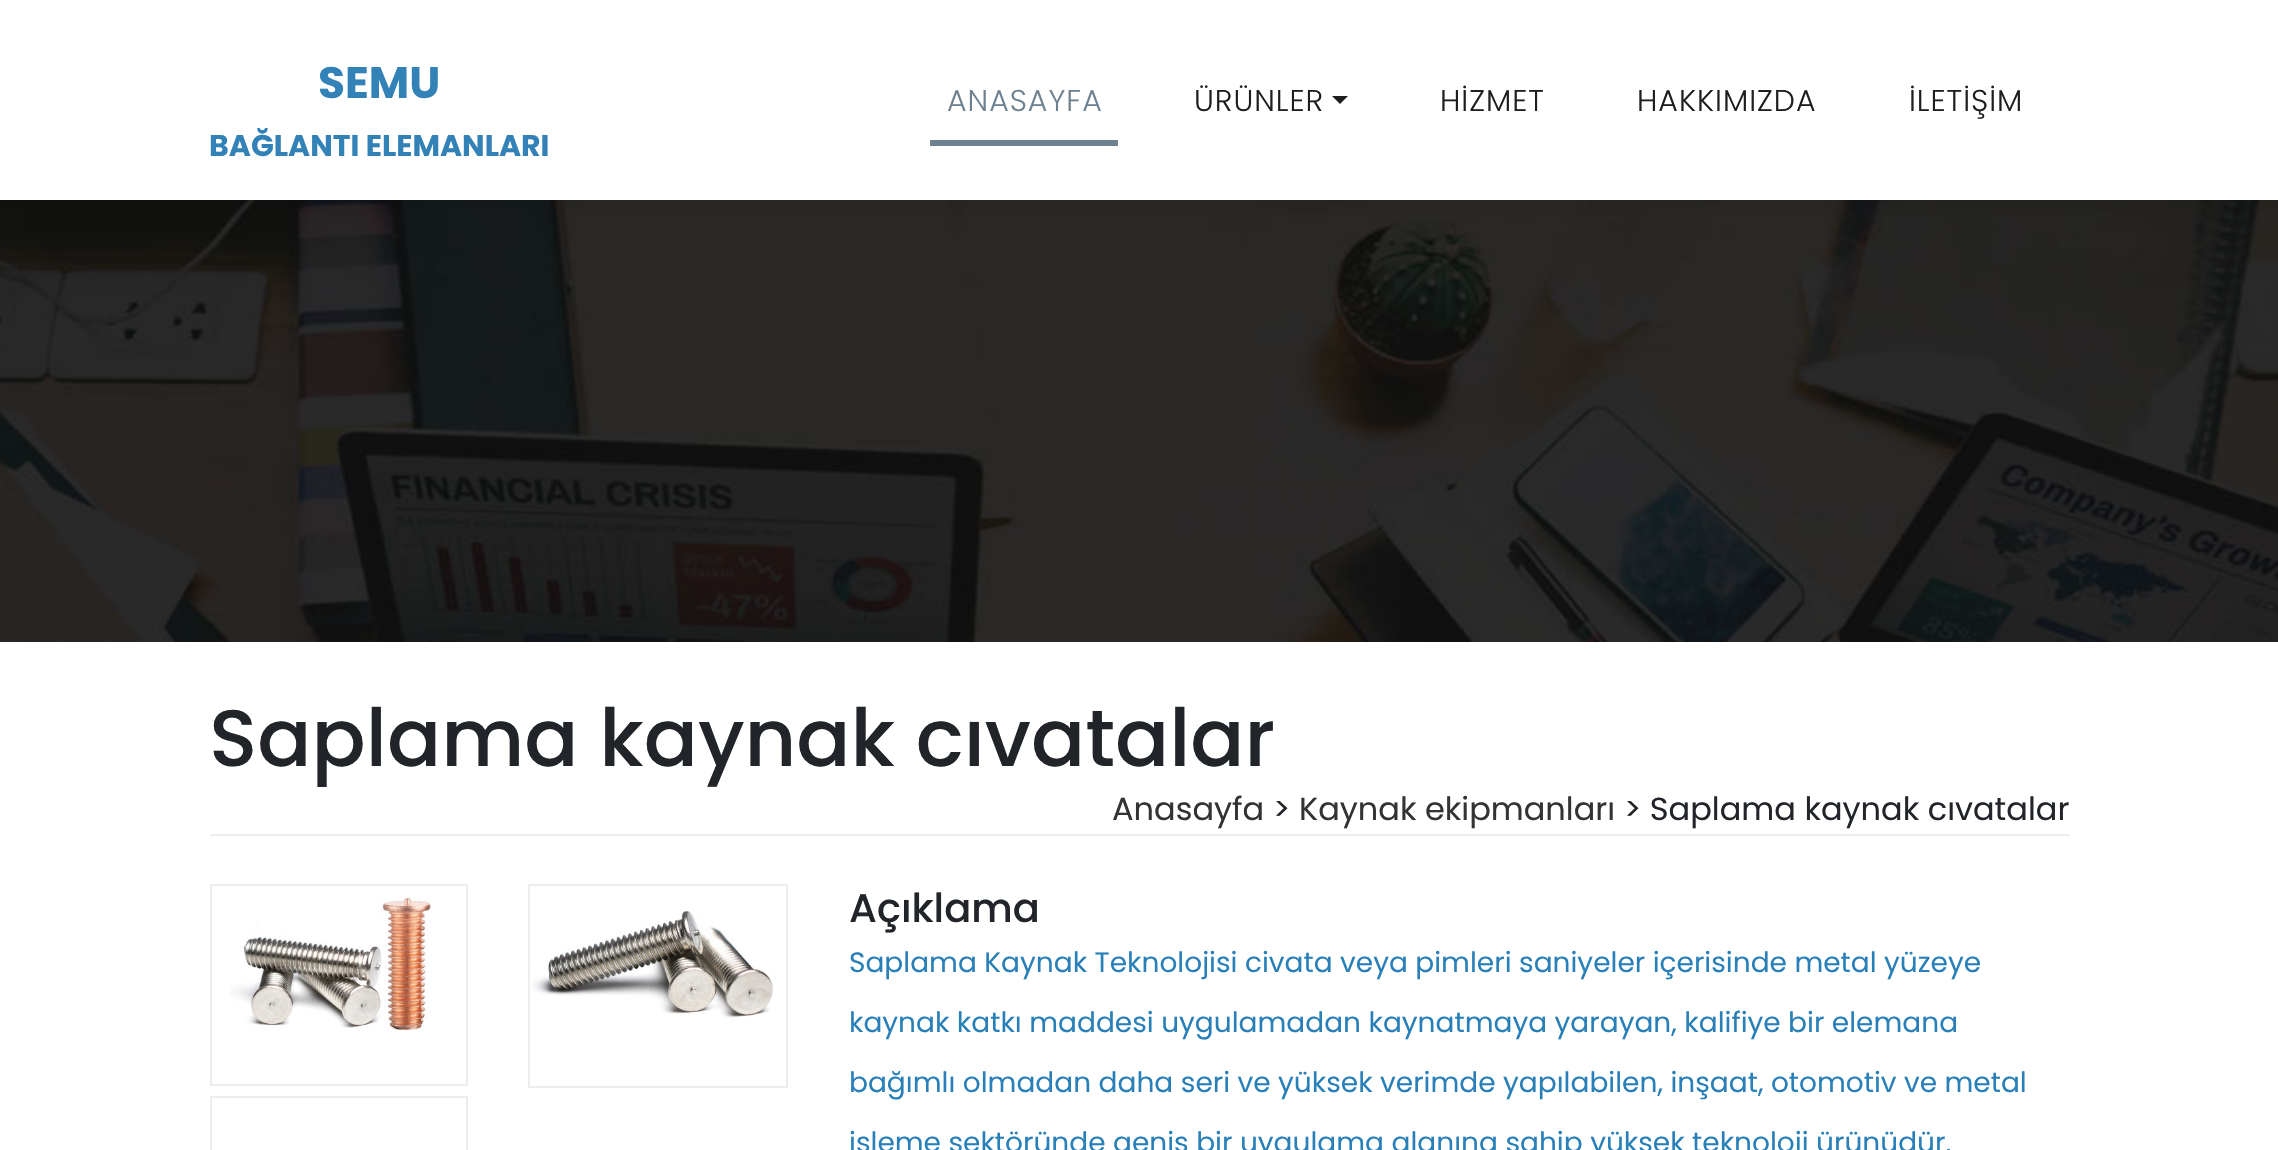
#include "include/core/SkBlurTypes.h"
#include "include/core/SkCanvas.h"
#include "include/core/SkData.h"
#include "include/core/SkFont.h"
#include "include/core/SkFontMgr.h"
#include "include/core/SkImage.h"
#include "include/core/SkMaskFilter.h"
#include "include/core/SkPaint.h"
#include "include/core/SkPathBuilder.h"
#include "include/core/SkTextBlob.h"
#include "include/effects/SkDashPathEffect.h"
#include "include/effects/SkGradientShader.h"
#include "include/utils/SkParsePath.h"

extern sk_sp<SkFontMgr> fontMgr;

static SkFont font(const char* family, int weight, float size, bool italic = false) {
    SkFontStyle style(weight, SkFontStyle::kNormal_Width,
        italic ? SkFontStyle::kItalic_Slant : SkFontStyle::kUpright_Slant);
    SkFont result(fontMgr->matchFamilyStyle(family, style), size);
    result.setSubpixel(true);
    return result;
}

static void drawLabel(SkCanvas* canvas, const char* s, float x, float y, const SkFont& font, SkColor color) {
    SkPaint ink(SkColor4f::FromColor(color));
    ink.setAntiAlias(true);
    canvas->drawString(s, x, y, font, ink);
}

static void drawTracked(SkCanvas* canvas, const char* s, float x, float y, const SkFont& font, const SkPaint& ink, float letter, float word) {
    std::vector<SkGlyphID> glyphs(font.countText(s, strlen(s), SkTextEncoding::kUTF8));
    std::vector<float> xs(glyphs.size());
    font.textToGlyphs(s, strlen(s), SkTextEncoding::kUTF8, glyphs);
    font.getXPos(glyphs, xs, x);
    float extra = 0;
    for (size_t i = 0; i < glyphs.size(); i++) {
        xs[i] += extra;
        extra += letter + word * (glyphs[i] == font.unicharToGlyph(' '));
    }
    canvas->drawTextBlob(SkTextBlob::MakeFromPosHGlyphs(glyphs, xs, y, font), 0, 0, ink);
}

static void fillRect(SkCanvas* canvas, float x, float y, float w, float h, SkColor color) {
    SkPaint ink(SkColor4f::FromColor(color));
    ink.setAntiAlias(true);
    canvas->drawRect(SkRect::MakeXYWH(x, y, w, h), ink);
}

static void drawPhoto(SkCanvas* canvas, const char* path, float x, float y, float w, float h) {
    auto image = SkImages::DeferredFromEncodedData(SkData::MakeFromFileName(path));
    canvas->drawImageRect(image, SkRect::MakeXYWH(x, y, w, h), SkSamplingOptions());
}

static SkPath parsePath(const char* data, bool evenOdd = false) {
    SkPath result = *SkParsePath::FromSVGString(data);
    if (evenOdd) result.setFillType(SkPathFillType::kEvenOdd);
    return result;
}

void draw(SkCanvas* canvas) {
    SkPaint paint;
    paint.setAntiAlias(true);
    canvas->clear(0xFFFFFFFF);
    drawPhoto(canvas, "assets/img1.png", 0, 200, 2278, 442);
    paint.setColor(0x1A000000);
    paint.setMaskFilter(SkMaskFilter::MakeBlur(kNormal_SkBlurStyle, 10));
    canvas->drawRect(SkRect::MakeXYWH(0, 2, 2278, 200), paint);
    paint.setMaskFilter(nullptr);
    fillRect(canvas, 0, 0, 2278, 200, 0xFFFFFFFF);
    SkFont font1 = font("Poppins", 700, 44);
    drawLabel(canvas, "SEMU", 318, 98, font1, 0xFF3282B8);
    SkFont font2 = font("Poppins", 700, 30);
    drawLabel(canvas, "BAĞLANTI ELEMANLARI", 209, 156, font2, 0xFF3282B8);
    fillRect(canvas, 930, 140, 188, 6, 0xFF6E8190);
    SkFont font3 = font("Poppins", 300, 30);
    paint.setColor(0xFF6E8190);
    drawTracked(canvas, "ANASAYFA", 947, 111, font3, paint, 1, 0);
    paint.setColor(0xFF1E1E1E);
    drawTracked(canvas, "ÜRÜNLER", 1194, 111, font3, paint, 1, 0);
    canvas->drawPath(parsePath("M1332 96H1348L1340 104Z"), paint);
    drawTracked(canvas, "HİZMET", 1440, 111, font3, paint, 1, 0);
    drawTracked(canvas, "HAKKIMIZDA", 1637, 111, font3, paint, 1, 0);
    drawTracked(canvas, "İLETİŞİM", 1909, 111, font3, paint, 1, 0);
    SkFont font4 = font("Poppins", 500, 80);
    drawLabel(canvas, "Saplama kaynak cıvatalar", 209, 766, font4, 0xFF212529);
    fillRect(canvas, 210, 834, 1860, 2, 0xFFEDEDED);
    SkFont font5 = font("Poppins", 400, 32);
    drawLabel(canvas, "Anasayfa", 1112, 820, font5, 0xFF333333);
    drawLabel(canvas, ">", 1273, 820, font5, 0xFF212529);
    drawLabel(canvas, "Kaynak ekipmanları", 1299, 820, font5, 0xFF333333);
    drawLabel(canvas, "> Saplama kaynak cıvatalar", 1624, 820, font5, 0xFF212529);
    paint.setStroke(true);
    paint.setStrokeWidth(2);
    paint.setColor(0xFFEDEDED);
    canvas->drawRect(SkRect::MakeXYWH(211, 885, 256, 200), paint);
    drawPhoto(canvas, "assets/img2.png", 229, 897, 202, 134);
    canvas->drawRect(SkRect::MakeXYWH(529, 885, 258, 202), paint);
    drawPhoto(canvas, "assets/img3.png", 531, 911, 242, 107);
    canvas->drawRect(SkRect::MakeXYWH(211, 1097, 256, 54), paint);
    SkFont font6 = font("Poppins", 500, 40);
    drawLabel(canvas, "Açıklama", 849, 922, font6, 0xFF212529);
    SkFont font7 = font("Poppins", 400, 28);
    drawLabel(canvas, "Saplama Kaynak Teknolojisi civata veya pimleri saniyeler içerisinde metal yüzeye", 849, 972, font7, 0xFF2980B9);
    drawLabel(canvas, "kaynak katkı maddesi uygulamadan kaynatmaya yarayan, kalifiye bir elemana", 849, 1032, font7, 0xFF2980B9);
    drawLabel(canvas, "bağımlı olmadan daha seri ve yüksek verimde yapılabilen, inşaat, otomotiv ve metal", 849, 1092, font7, 0xFF2980B9);
    drawLabel(canvas, "işleme sektöründe geniş bir uygulama alanına sahip yüksek teknoloji ürünüdür.", 849, 1152, font7, 0xFF2980B9);
}
